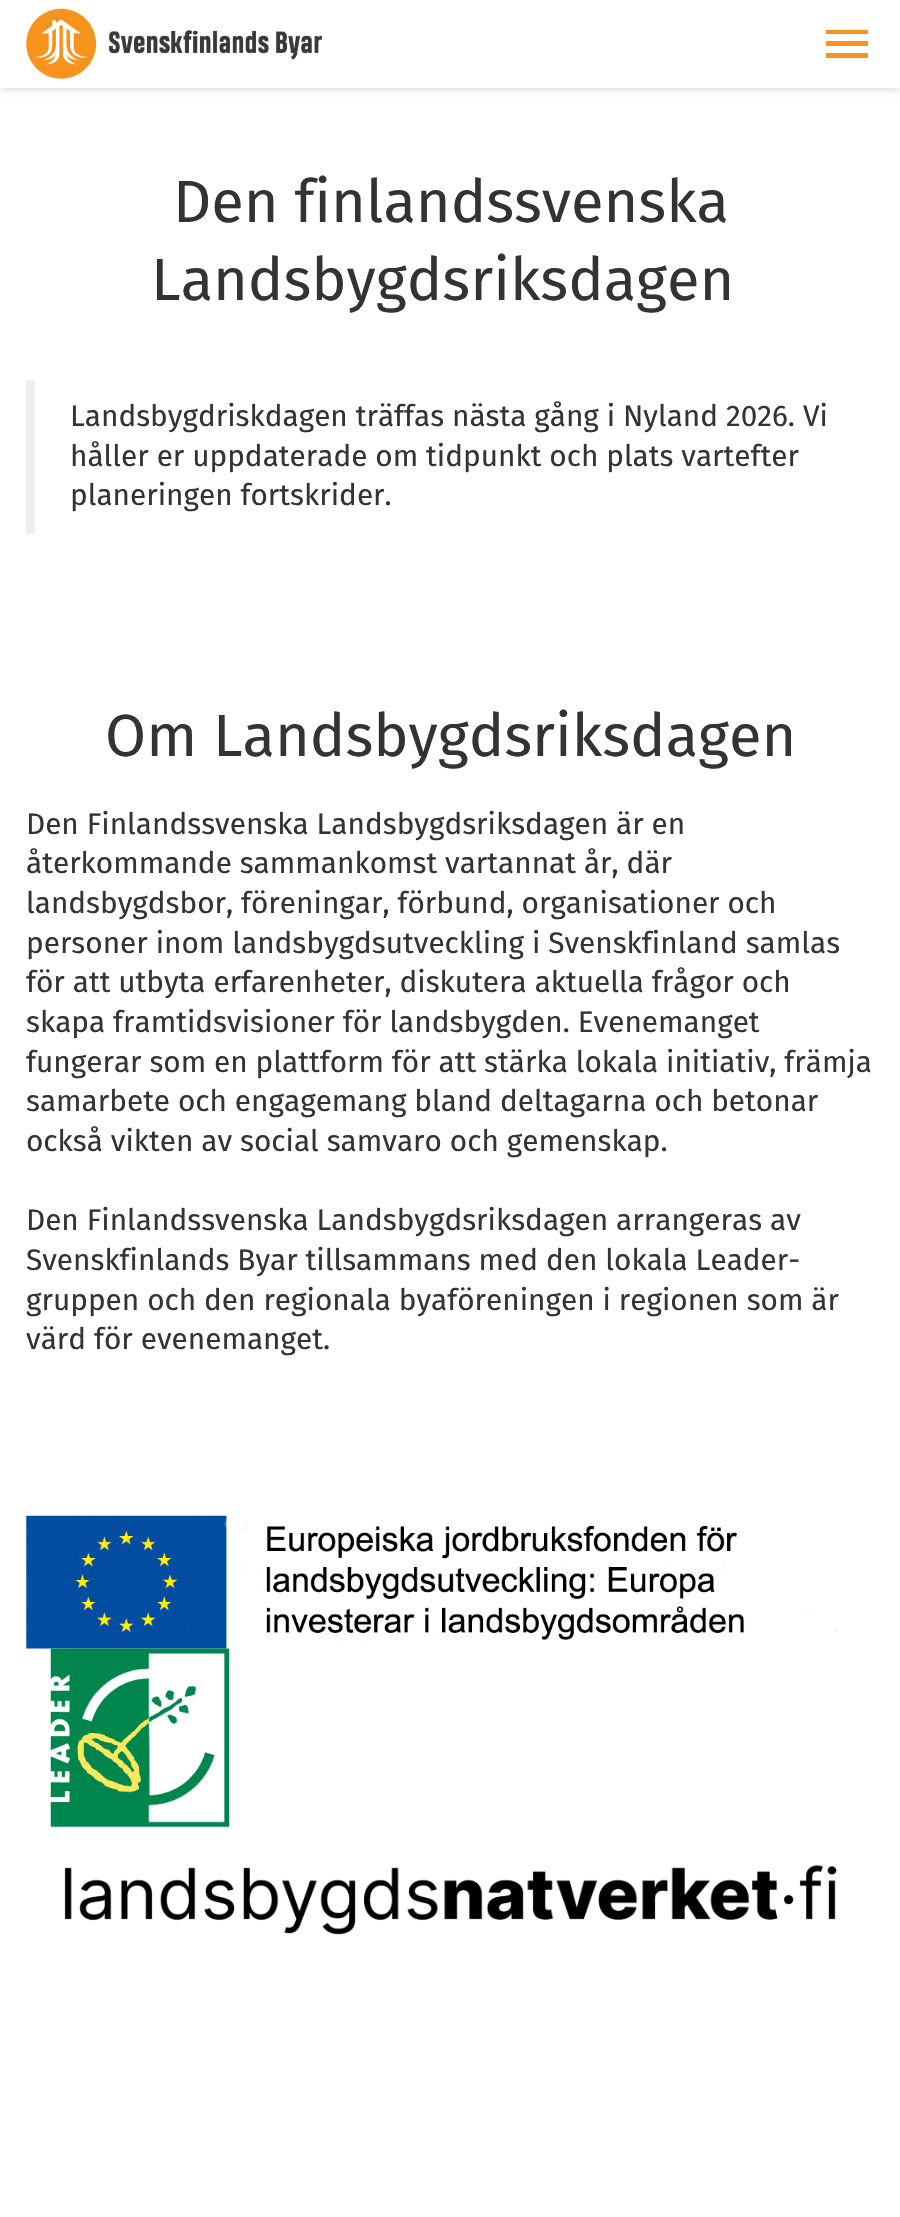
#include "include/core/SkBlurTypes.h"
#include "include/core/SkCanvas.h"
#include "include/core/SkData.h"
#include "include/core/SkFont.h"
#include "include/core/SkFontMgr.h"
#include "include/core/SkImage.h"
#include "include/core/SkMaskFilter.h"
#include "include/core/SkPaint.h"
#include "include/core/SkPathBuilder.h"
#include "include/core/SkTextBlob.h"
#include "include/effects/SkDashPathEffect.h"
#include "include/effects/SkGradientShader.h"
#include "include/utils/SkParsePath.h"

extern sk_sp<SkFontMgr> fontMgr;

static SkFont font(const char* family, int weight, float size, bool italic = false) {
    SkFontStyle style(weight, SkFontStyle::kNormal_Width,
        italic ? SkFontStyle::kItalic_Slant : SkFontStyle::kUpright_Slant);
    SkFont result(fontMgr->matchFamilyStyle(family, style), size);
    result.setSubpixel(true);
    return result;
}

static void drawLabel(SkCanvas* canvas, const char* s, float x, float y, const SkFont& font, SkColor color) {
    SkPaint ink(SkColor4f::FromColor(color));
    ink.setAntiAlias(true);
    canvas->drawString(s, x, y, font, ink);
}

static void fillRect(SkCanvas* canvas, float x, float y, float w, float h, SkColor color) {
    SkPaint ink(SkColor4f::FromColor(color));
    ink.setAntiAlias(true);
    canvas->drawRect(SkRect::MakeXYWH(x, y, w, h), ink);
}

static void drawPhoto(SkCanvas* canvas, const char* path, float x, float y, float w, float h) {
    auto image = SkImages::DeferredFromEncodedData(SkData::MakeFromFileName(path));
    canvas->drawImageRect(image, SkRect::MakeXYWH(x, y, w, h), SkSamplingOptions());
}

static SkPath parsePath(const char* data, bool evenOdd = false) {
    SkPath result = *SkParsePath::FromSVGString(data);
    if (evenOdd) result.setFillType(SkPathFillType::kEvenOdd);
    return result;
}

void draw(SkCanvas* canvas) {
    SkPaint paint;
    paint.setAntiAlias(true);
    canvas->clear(0xFFFFFFFF);
    paint.setColor(0x33000000);
    paint.setMaskFilter(SkMaskFilter::MakeBlur(kNormal_SkBlurStyle, 4.5f));
    canvas->drawRect(SkRect::MakeXYWH(0, 0, 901, 88), paint);
    paint.setMaskFilter(nullptr);
    fillRect(canvas, 0, 0, 900, 88, 0xFFFFFFFF);
    drawPhoto(canvas, "assets/img1.png", 26, 8, 296, 71);
    paint.setColor(0xFFF7941D);
    canvas->drawPath(parsePath("M826 30H868V34H826ZM826 46V41H868V46ZM826 58V53H868V58Z"), paint);
    SkFont font1 = font("Fira Sans", 400, 59.5f);
    drawLabel(canvas, "Den finlandssvenska", 173, 222, font1, 0xFF333333);
    drawLabel(canvas, "Landsbygdsriksdagen", 151, 300, font1, 0xFF333333);
    fillRect(canvas, 26, 380, 9, 154, 0xFFEEEEEE);
    SkFont font2 = font("Fira Sans", 400, 29.75f);
    drawLabel(canvas, "Landsbygdriskdagen träffas nästa gång i Nyland 2026. Vi", 70, 426, font2, 0xFF333333);
    drawLabel(canvas, "håller er uppdaterade om tidpunkt och plats vartefter", 70, 466, font2, 0xFF333333);
    drawLabel(canvas, "planeringen fortskrider.", 70, 505, font2, 0xFF333333);
    drawLabel(canvas, "Om Landsbygdsriksdagen", 105, 756, font1, 0xFF333333);
    drawLabel(canvas, "Den Finlandssvenska Landsbygdsriksdagen är en", 26, 834, font2, 0xFF333333);
    drawLabel(canvas, "återkommande sammankomst vartannat år, där", 26, 873, font2, 0xFF333333);
    drawLabel(canvas, "landsbygdsbor, föreningar, förbund, organisationer och", 26, 913, font2, 0xFF333333);
    drawLabel(canvas, "personer inom landsbygdsutveckling i Svenskfinland samlas", 26, 953, font2, 0xFF333333);
    drawLabel(canvas, "för att utbyta erfarenheter, diskutera aktuella frågor och", 26, 992, font2, 0xFF333333);
    drawLabel(canvas, "skapa framtidsvisioner för landsbygden. Evenemanget", 26, 1032, font2, 0xFF333333);
    drawLabel(canvas, "fungerar som en plattform för att stärka lokala initiativ, främja", 26, 1072, font2, 0xFF333333);
    drawLabel(canvas, "samarbete och engagemang bland deltagarna och betonar", 26, 1111, font2, 0xFF333333);
    drawLabel(canvas, "också vikten av social samvaro och gemenskap.", 26, 1151, font2, 0xFF333333);
    drawLabel(canvas, "Den Finlandssvenska Landsbygdsriksdagen arrangeras av", 26, 1230, font2, 0xFF333333);
    drawLabel(canvas, "Svenskfinlands Byar tillsammans med den lokala Leader-", 26, 1270, font2, 0xFF333333);
    drawLabel(canvas, "gruppen och den regionala byaföreningen i regionen som är", 26, 1310, font2, 0xFF333333);
    drawLabel(canvas, "värd för evenemanget.", 26, 1349, font2, 0xFF333333);
    drawPhoto(canvas, "assets/img2.png", 26, 1515, 812, 134);
    drawPhoto(canvas, "assets/img3.png", 50, 1648, 180, 179);
    drawPhoto(canvas, "assets/img4.png", 64, 1865, 773, 70);
}
